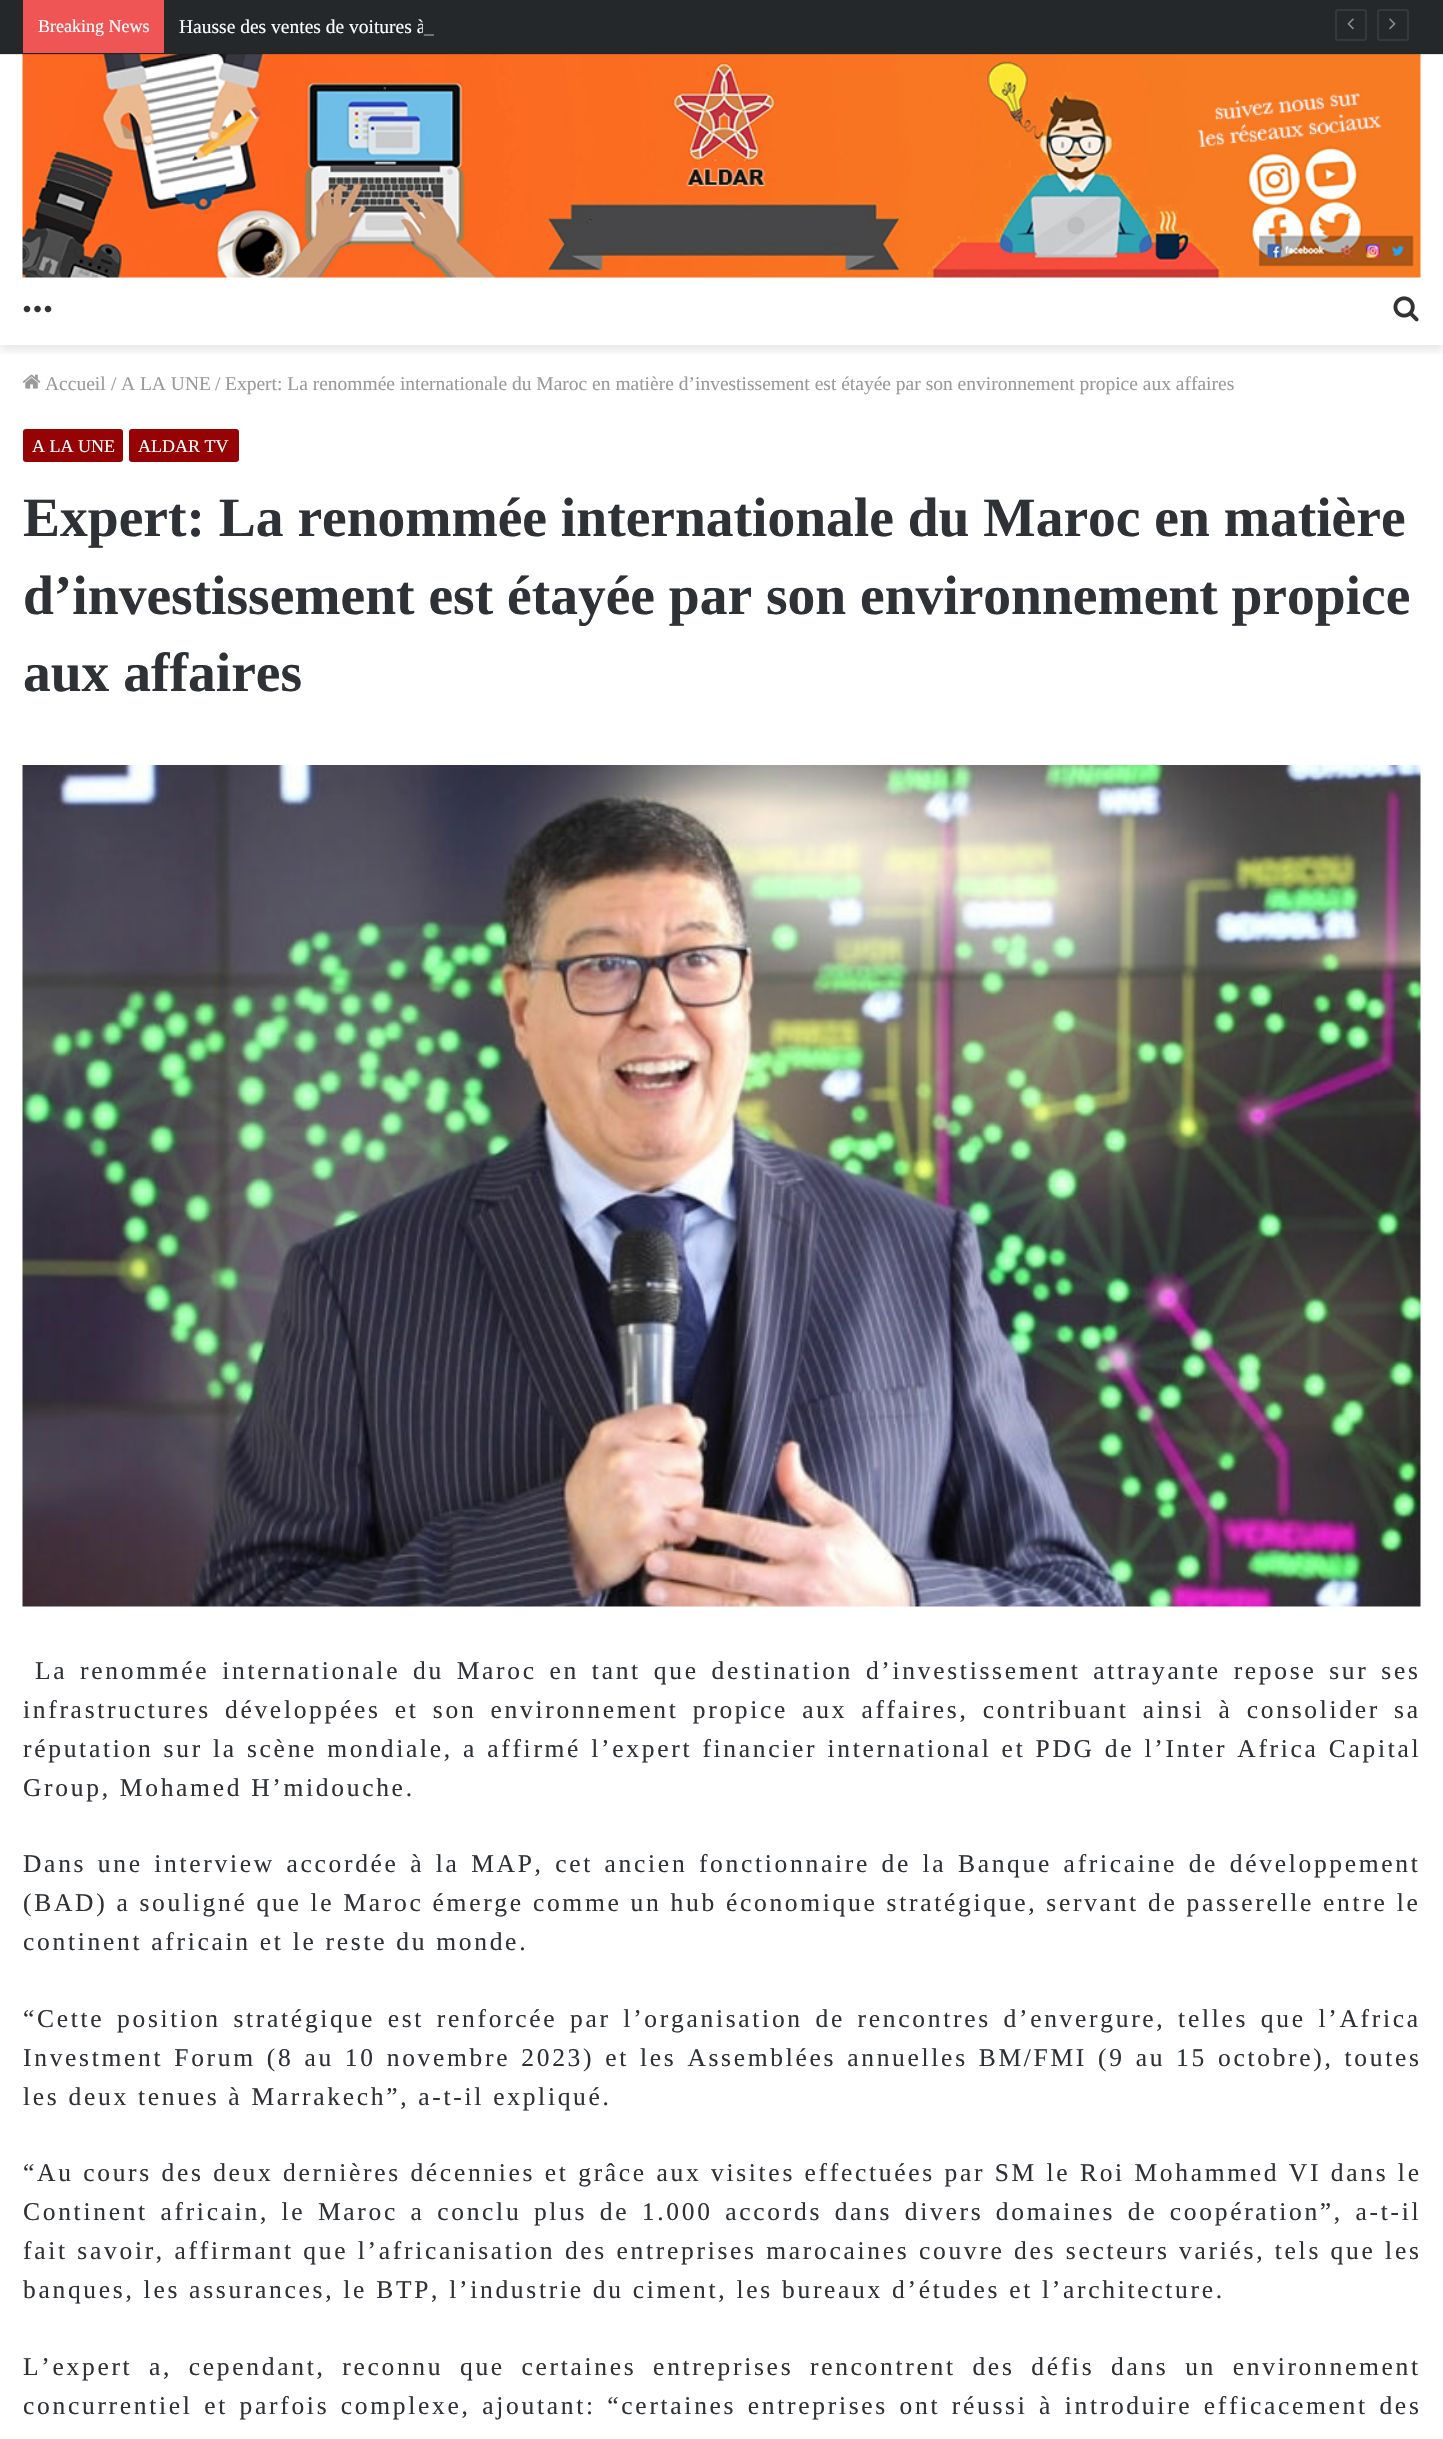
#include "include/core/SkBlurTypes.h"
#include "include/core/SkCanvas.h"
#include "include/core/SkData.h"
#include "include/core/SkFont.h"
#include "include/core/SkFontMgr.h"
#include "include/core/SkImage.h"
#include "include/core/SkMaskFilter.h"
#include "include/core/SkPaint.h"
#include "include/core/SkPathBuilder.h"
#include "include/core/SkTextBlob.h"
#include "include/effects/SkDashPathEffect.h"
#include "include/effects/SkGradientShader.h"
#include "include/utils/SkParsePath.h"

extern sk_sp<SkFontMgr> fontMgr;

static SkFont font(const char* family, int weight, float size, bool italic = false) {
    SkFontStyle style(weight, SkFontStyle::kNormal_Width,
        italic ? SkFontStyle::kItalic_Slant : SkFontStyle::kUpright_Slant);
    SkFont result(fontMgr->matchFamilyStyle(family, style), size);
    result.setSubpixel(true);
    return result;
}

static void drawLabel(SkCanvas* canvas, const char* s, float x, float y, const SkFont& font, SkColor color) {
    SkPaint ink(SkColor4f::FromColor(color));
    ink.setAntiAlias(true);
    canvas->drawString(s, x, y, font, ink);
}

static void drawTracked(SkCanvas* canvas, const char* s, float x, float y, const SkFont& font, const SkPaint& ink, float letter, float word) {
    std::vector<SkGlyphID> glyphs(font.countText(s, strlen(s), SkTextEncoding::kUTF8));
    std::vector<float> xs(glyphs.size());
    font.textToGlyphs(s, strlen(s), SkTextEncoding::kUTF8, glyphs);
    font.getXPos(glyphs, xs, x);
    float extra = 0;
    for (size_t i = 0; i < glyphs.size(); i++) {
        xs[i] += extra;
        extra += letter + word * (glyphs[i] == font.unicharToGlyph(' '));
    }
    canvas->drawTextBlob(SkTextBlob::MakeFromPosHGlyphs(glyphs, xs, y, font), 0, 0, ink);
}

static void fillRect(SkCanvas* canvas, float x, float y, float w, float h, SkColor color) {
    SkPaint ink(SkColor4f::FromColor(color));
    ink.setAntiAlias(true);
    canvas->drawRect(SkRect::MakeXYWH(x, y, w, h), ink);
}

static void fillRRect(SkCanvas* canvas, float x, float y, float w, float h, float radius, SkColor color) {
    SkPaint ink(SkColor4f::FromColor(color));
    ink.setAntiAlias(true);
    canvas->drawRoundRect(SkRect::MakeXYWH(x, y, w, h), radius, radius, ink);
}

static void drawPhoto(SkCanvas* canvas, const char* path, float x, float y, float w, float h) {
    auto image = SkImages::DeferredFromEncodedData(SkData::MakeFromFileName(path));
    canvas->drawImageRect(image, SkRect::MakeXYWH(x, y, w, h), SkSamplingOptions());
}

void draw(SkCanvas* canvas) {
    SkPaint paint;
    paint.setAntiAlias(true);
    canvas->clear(0xFFFFFFFF);
    canvas->save();
    canvas->clipRect(SkRect::MakeXYWH(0, 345, 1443, 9));
    paint.setColor(0x1A000000);
    paint.setMaskFilter(SkMaskFilter::MakeBlur(kNormal_SkBlurStyle, 5));
    canvas->drawRect(SkRect::MakeXYWH(0, 59, 1443, 291), paint);
    paint.setMaskFilter(nullptr);
    canvas->restore();
    fillRect(canvas, 0, 0, 1443, 54, 0xFF25282B);
    drawPhoto(canvas, "assets/img3.png", 22, 54, 1399, 224);
    fillRect(canvas, 0, 53, 1443, 2, 0x1A000000);
    fillRect(canvas, 23, 0, 141, 53, 0xFFF05555);
    SkFont font1 = font("Liberation Serif", 400, 18);
    drawLabel(canvas, "Breaking News", 38, 32, font1, 0xFFFFFFFF);
    SkFont font2 = font("Liberation Serif", 400, 19.5f);
    drawLabel(canvas, "Hausse des ventes de voitures à", 179, 33, font2, 0xFFFFFFFF);
    fillRect(canvas, 423, 24, 3, 9, 0xFF25282B);
    drawLabel(canvas, "_", 424, 33, font2, 0xFFAAAAAA);
    paint.setStroke(true);
    paint.setStrokeWidth(2);
    paint.setColor(0xFF36393C);
    canvas->drawRoundRect(SkRect::MakeXYWH(1336, 10, 30, 30), 2, 2, paint);
    drawPhoto(canvas, "assets/img1.png", 1347, 18, 7, 12);
    canvas->drawRoundRect(SkRect::MakeXYWH(1378, 10, 30, 30), 2, 2, paint);
    drawPhoto(canvas, "assets/img2.png", 1389, 18, 7, 12);
    drawPhoto(canvas, "assets/img4.png", 23, 305, 29, 8);
    drawPhoto(canvas, "assets/img5.png", 1393, 296, 26, 26);
    drawPhoto(canvas, "assets/img6.png", 22, 374, 19, 15);
    drawLabel(canvas, "Accueil", 45, 390, font2, 0xFF9A9A9A);
    drawLabel(canvas, "/", 111, 390, font2, 0xFF9A9A9A);
    drawLabel(canvas, "A LA UNE", 121, 390, font2, 0xFF9A9A9A);
    drawLabel(canvas, "/", 215, 390, font2, 0xFF9A9A9A);
    drawLabel(canvas, "Expert: La renommée internationale du Maroc en matière d’investissement est étayée par son environnement propice aux affaires", 225, 390, font2, 0xFF9A9A9A);
    fillRRect(canvas, 23, 429, 100, 33, 3, 0xFF960304);
    drawLabel(canvas, "A LA UNE", 32, 452, font1, 0xFFFFFFFF);
    fillRRect(canvas, 129, 429, 110, 33, 3, 0xFF960304);
    drawLabel(canvas, "ALDAR TV", 138, 452, font1, 0xFFFFFFFF);
    SkFont font3 = font("Liberation Serif", 700, 55.5f);
    drawLabel(canvas, "Expert: La renommée internationale du Maroc en matière", 23, 536, font3, 0xFF2E3136);
    drawLabel(canvas, "d’investissement est étayée par son environnement propice", 23, 614, font3, 0xFF2E3136);
    drawLabel(canvas, "aux affaires", 23, 691, font3, 0xFF2E3136);
    drawPhoto(canvas, "assets/img7.png", 22, 765, 1399, 842);
    SkFont font4 = font("Liberation Serif", 400, 25.5f);
    paint.setStroke(false);
    paint.setColor(0xFF2E3136);
    drawTracked(canvas, "La renommée internationale du Maroc en tant que destination d’investissement attrayante repose sur ses", 35, 1679, font4, paint, 2.7f, 3.75f);
    drawTracked(canvas, "infrastructures développées et son environnement propice aux affaires, contribuant ainsi à consolider sa", 23, 1718, font4, paint, 2.7f, 5.1f);
    drawTracked(canvas, "réputation sur la scène mondiale, a affirmé l’expert financier international et PDG de l’Inter Africa Capital", 23, 1757, font4, paint, 2.7f, 1.1f);
    drawTracked(canvas, "Group, Mohamed H’midouche.", 23, 1796, font4, paint, 2.7f, 0);
    drawTracked(canvas, "Dans une interview accordée à la MAP, cet ancien fonctionnaire de la Banque africaine de développement", 23, 1872, font4, paint, 2.7f, 2.5f);
    drawTracked(canvas, "(BAD) a souligné que le Maroc émerge comme un hub économique stratégique, servant de passerelle entre le", 23, 1911, font4, paint, 2.7f, 0);
    drawTracked(canvas, "continent africain et le reste du monde.", 23, 1950, font4, paint, 2.7f, 0);
    drawTracked(canvas, "“Cette position stratégique est renforcée par l’organisation de rencontres d’envergure, telles que l’Africa", 23, 2027, font4, paint, 2.7f, 3.6f);
    drawTracked(canvas, "Investment Forum (8 au 10 novembre 2023) et les Assemblées annuelles BM/FMI (9 au 15 octobre), toutes", 23, 2066, font4, paint, 2.7f, 1.9f);
    drawTracked(canvas, "les deux tenues à Marrakech”, a-t-il expliqué.", 23, 2105, font4, paint, 2.7f, 0);
    drawTracked(canvas, "“Au cours des deux dernières décennies et grâce aux visites effectuées par SM le Roi Mohammed VI dans le", 23, 2181, font4, paint, 2.7f, 0.5f);
    drawTracked(canvas, "Continent africain, le Maroc a conclu plus de 1.000 accords dans divers domaines de coopération”, a-t-il", 23, 2220, font4, paint, 2.7f, 3.5f);
    drawTracked(canvas, "fait savoir, affirmant que l’africanisation des entreprises marocaines couvre des secteurs variés, tels que les", 23, 2259, font4, paint, 2.7f, 0.5f);
    drawTracked(canvas, "banques, les assurances, le BTP, l’industrie du ciment, les bureaux d’études et l’architecture.", 23, 2298, font4, paint, 2.7f, 0);
    drawTracked(canvas, "L’expert a, cependant, reconnu que certaines entreprises rencontrent des défis dans un environnement", 23, 2375, font4, paint, 2.7f, 7.6f);
    drawTracked(canvas, "concurrentiel et parfois complexe, ajoutant: “certaines entreprises ont réussi à introduire efficacement des", 23, 2414, font4, paint, 2.7f, 2.5f);
}
